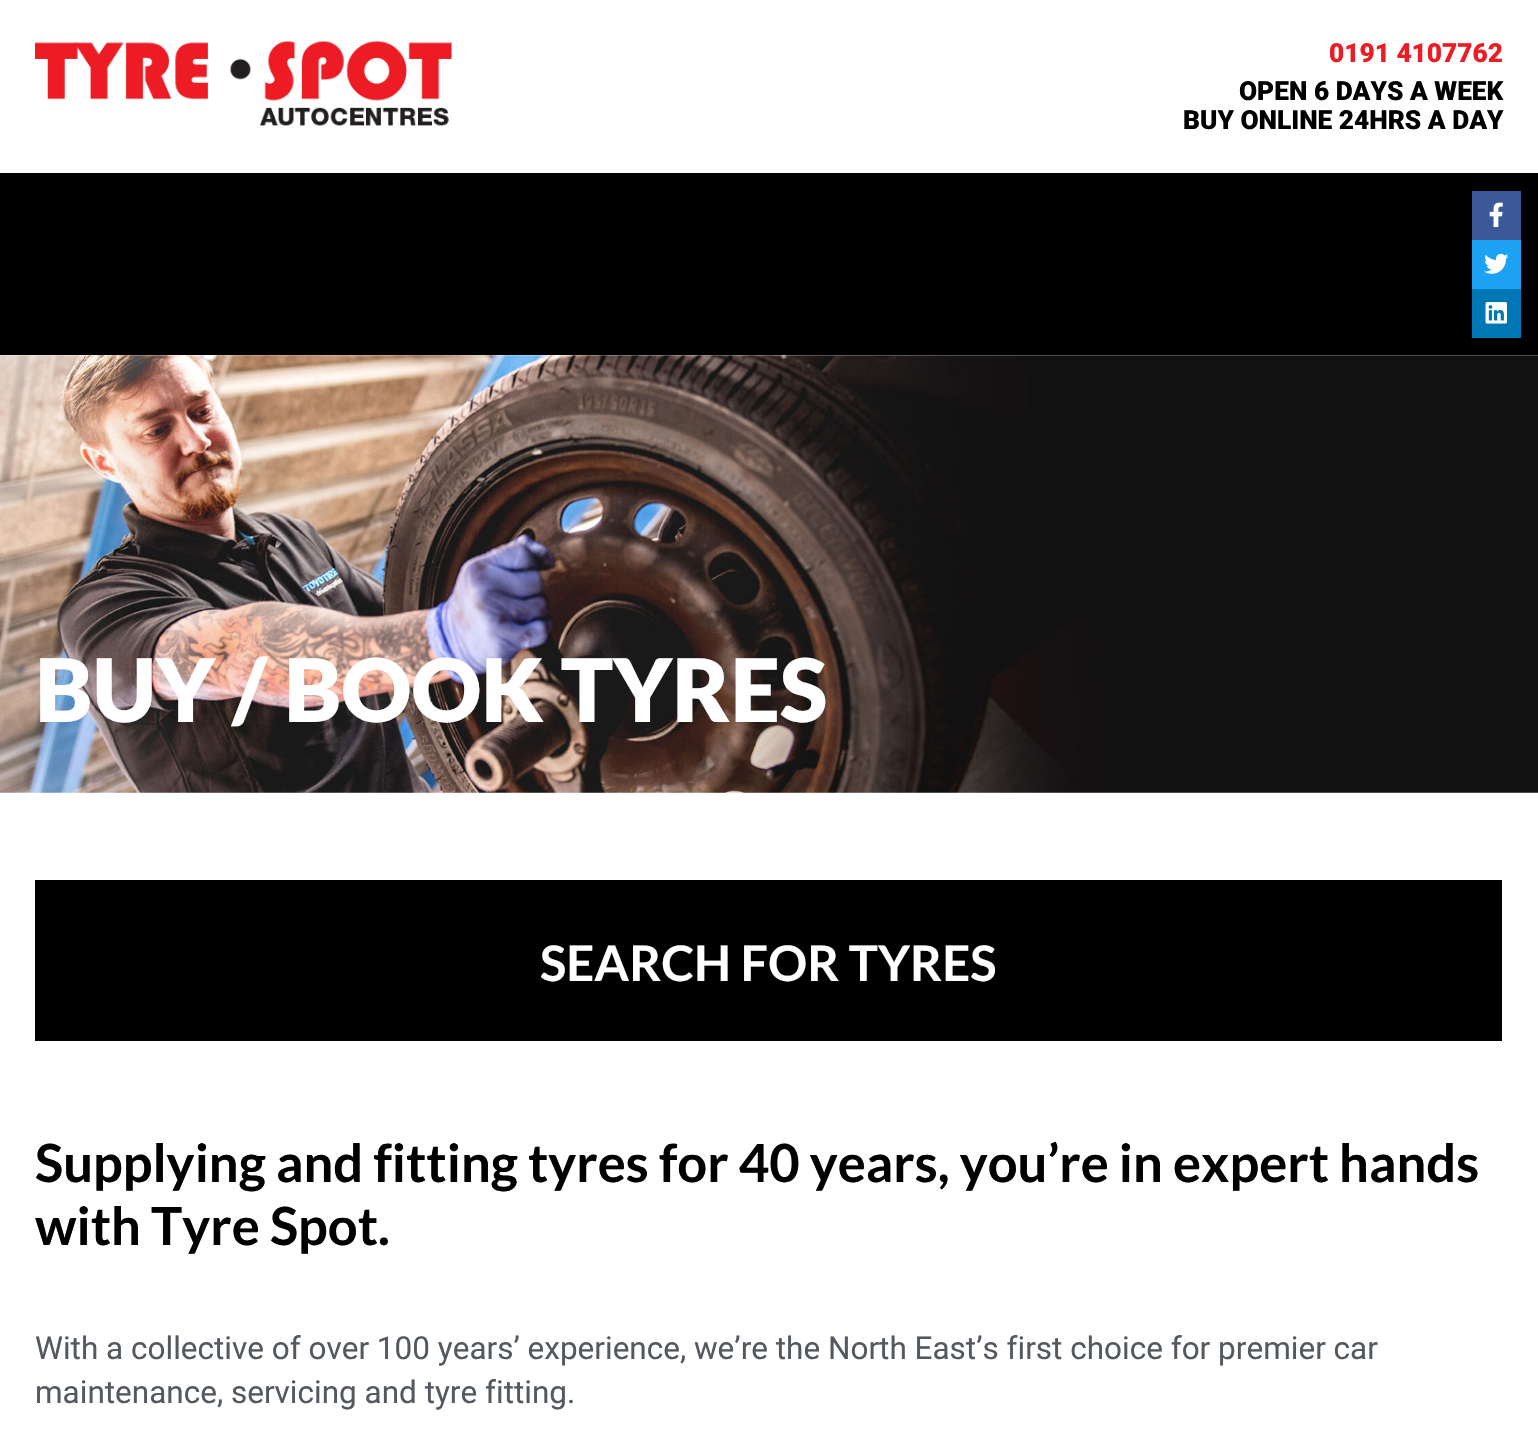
#include "include/core/SkBlurTypes.h"
#include "include/core/SkCanvas.h"
#include "include/core/SkData.h"
#include "include/core/SkFont.h"
#include "include/core/SkFontMgr.h"
#include "include/core/SkImage.h"
#include "include/core/SkMaskFilter.h"
#include "include/core/SkPaint.h"
#include "include/core/SkPathBuilder.h"
#include "include/core/SkTextBlob.h"
#include "include/effects/SkDashPathEffect.h"
#include "include/effects/SkGradientShader.h"
#include "include/utils/SkParsePath.h"

extern sk_sp<SkFontMgr> fontMgr;

static SkFont font(const char* family, int weight, float size, bool italic = false) {
    SkFontStyle style(weight, SkFontStyle::kNormal_Width,
        italic ? SkFontStyle::kItalic_Slant : SkFontStyle::kUpright_Slant);
    SkFont result(fontMgr->matchFamilyStyle(family, style), size);
    result.setSubpixel(true);
    return result;
}

static void drawLabel(SkCanvas* canvas, const char* s, float x, float y, const SkFont& font, SkColor color) {
    SkPaint ink(SkColor4f::FromColor(color));
    ink.setAntiAlias(true);
    canvas->drawString(s, x, y, font, ink);
}

static void fillRect(SkCanvas* canvas, float x, float y, float w, float h, SkColor color) {
    SkPaint ink(SkColor4f::FromColor(color));
    ink.setAntiAlias(true);
    canvas->drawRect(SkRect::MakeXYWH(x, y, w, h), ink);
}

static void drawPhoto(SkCanvas* canvas, const char* path, float x, float y, float w, float h) {
    auto image = SkImages::DeferredFromEncodedData(SkData::MakeFromFileName(path));
    canvas->drawImageRect(image, SkRect::MakeXYWH(x, y, w, h), SkSamplingOptions());
}

void draw(SkCanvas* canvas) {
    SkPaint paint;
    paint.setAntiAlias(true);
    canvas->clear(0xFFFFFFFF);
    drawPhoto(canvas, "assets/img1.png", 35, 41, 417, 85);
    SkFont font1 = font("Roboto", 900, 26.25f);
    drawLabel(canvas, "0191 4107762", 1329, 62, font1, 0xFFED1C24);
    drawLabel(canvas, "OPEN 6 DAYS A WEEK", 1239, 100, font1, 0xFF000000);
    drawLabel(canvas, "BUY ONLINE 24HRS A DAY", 1183, 129, font1, 0xFF000000);
    fillRect(canvas, 0, 173, 1538, 182, 0xFF000000);
    fillRect(canvas, 1472, 191, 49, 49, 0xFF3B5998);
    drawPhoto(canvas, "assets/img2.png", 1489, 202, 14, 26);
    fillRect(canvas, 1472, 240, 49, 49, 0xFF1DA1F2);
    drawPhoto(canvas, "assets/img3.png", 1484, 253, 25, 21);
    fillRect(canvas, 1472, 289, 49, 49, 0xFF0077B5);
    drawPhoto(canvas, "assets/img4.png", 1485, 302, 22, 22);
    drawPhoto(canvas, "assets/img5.png", 0, 355, 1538, 438);
    SkFont font2 = font("Lato", 900, 87.5f);
    drawLabel(canvas, "BUY / BOOK TYRES", 35, 722, font2, 0xFFFFFFFF);
    fillRect(canvas, 35, 880, 1467, 161, 0xFF000000);
    SkFont font3 = font("Lato", 700, 49);
    drawLabel(canvas, "SEARCH FOR TYRES", 540, 981, font3, 0xFFFFFFFF);
    SkFont font4 = font("Lato", 700, 52.5f);
    drawLabel(canvas, "Supplying and fitting tyres for 40 years, you’re in expert hands", 35, 1182, font4, 0xFF000000);
    drawLabel(canvas, "with Tyre Spot.", 35, 1245, font4, 0xFF000000);
    SkFont font5 = font("Roboto", 400, 31.5f);
    drawLabel(canvas, "With a collective of over 100 years’ experience, we’re the North East’s first choice for premier car", 35, 1359, font5, 0xFF54595F);
    drawLabel(canvas, "maintenance, servicing and tyre fitting.", 35, 1403, font5, 0xFF54595F);
}
